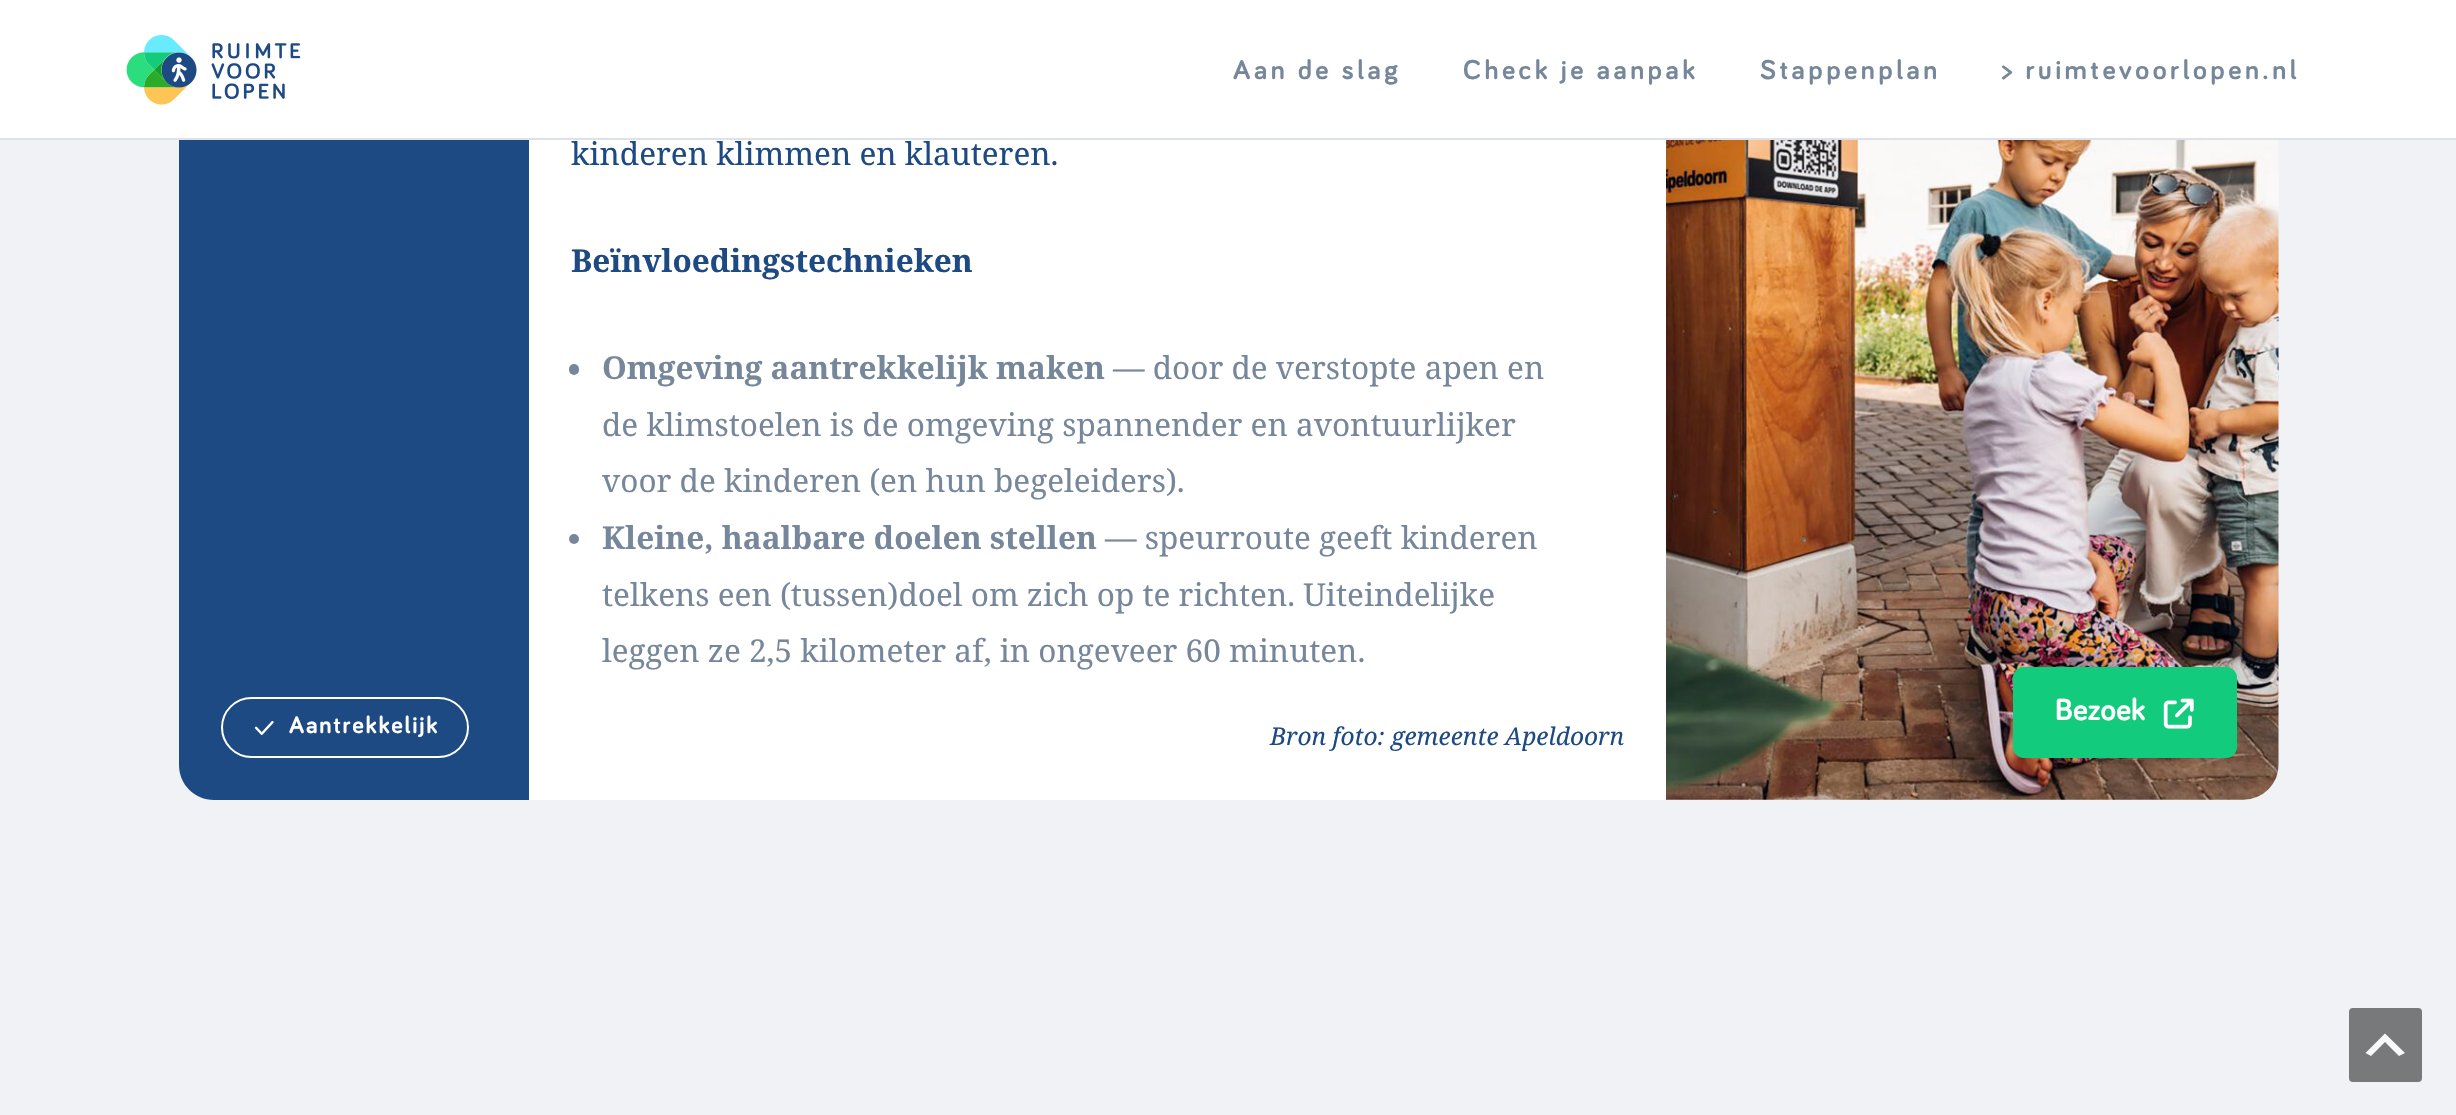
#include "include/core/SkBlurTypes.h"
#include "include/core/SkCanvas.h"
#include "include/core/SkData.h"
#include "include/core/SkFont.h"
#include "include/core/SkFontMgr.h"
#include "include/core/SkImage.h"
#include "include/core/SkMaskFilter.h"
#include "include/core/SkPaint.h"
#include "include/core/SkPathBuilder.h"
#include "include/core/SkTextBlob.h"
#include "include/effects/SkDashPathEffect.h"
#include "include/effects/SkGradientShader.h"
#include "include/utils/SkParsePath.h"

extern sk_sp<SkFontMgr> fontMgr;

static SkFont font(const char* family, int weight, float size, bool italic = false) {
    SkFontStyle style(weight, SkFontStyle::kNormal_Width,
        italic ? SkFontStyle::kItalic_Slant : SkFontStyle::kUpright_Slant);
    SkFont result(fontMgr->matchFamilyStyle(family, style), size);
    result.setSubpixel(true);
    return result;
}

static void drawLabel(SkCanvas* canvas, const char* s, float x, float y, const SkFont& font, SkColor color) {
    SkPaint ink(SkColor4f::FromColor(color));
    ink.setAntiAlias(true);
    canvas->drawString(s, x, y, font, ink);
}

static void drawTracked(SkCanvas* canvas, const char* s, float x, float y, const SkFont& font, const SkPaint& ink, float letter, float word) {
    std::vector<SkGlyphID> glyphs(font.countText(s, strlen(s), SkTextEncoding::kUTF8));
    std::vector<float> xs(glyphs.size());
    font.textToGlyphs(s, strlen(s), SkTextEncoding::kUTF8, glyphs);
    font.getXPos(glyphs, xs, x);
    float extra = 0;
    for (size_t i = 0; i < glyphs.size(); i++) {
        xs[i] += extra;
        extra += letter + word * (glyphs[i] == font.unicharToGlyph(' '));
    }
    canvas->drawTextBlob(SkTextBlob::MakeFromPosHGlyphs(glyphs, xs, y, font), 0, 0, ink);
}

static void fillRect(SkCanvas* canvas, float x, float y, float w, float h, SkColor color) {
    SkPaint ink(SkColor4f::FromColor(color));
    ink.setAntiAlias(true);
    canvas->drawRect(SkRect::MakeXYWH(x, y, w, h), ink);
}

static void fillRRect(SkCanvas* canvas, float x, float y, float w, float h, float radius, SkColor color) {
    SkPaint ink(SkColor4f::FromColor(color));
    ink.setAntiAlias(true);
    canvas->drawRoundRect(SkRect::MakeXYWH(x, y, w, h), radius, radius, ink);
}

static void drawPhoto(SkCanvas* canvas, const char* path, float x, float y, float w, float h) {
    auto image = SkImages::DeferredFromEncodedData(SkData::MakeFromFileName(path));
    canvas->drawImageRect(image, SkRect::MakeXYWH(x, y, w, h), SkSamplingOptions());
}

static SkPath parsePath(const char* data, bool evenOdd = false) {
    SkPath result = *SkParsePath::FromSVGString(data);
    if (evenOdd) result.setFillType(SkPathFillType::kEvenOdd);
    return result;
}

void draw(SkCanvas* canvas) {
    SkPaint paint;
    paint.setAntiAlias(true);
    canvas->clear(0xFFF0F2F5);
    paint.setColor(0xFF1E4A84);
    canvas->drawPath(parsePath("M214-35H529V800H214C194.5 800 179 784.5 179 765V0C179-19.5 194.5-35 214-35Z"), paint);
    fillRect(canvas, 0, 0, 2456, 138, 0xFFFFFFFF);
    fillRect(canvas, 0, 138, 2456, 2, 0xFFDDE1E8);
    drawPhoto(canvas, "assets/img1.png", 126, 35, 175, 70);
    SkFont font1 = font("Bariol", 700, 28);
    paint.setColor(0xFF77879B);
    drawTracked(canvas, "Aan de slag", 1233, 79, font1, paint, 3.5f, 0);
    drawTracked(canvas, "Check je aanpak", 1463, 79, font1, paint, 3.5f, 0);
    drawTracked(canvas, "Stappenplan", 1760, 79, font1, paint, 3.5f, 0);
    drawTracked(canvas, "> ruimtevoorlopen.nl", 2002, 79, font1, paint, 3.5f, 0);
    fillRect(canvas, 529, 140, 1137, 660, 0xFFFFFFFF);
    SkFont font2 = font("Noto Serif", 400, 31.5f);
    drawLabel(canvas, "kinderen klimmen en klauteren.", 571, 165, font2, 0xFF1E4A84);
    SkFont font3 = font("Noto Serif", 700, 31.5f);
    drawLabel(canvas, "Beïnvloedingstechnieken", 571, 272, font3, 0xFF1E4A84);
    fillRRect(canvas, 569, 364, 10, 11, 5, 0xFF77879B);
    drawLabel(canvas, "Omgeving aantrekkelijk maken", 602, 379, font3, 0xFF77879B);
    drawLabel(canvas, "— door de verstopte apen en", 1113, 379, font2, 0xFF77879B);
    drawLabel(canvas, "de klimstoelen is de omgeving spannender en avontuurlijker", 602, 436, font2, 0xFF77879B);
    drawLabel(canvas, "voor de kinderen (en hun begeleiders).", 602, 492, font2, 0xFF77879B);
    canvas->drawCircle(574, 539, 5, paint);
    drawLabel(canvas, "Kleine, haalbare doelen stellen", 602, 549, font3, 0xFF77879B);
    drawLabel(canvas, "— speurroute geeft kinderen", 1105, 549, font2, 0xFF77879B);
    drawLabel(canvas, "telkens een (tussen)doel om zich op te richten. Uiteindelijke", 602, 606, font2, 0xFF77879B);
    drawLabel(canvas, "leggen ze 2,5 kilometer af, in ongeveer 60 minuten.", 602, 662, font2, 0xFF77879B);
    SkFont font4 = font("Noto Serif", 400, 24.5f, true);
    drawLabel(canvas, "Bron foto: gemeente Apeldoorn", 1270, 745, font4, 0xFF1E4A84);
    drawPhoto(canvas, "assets/img2.png", 1666, 140, 613, 660);
    fillRRect(canvas, 2013, 667, 224, 91, 11, 0xFF12CB7D);
    SkFont font5 = font("Bariol", 700, 31.5f);
    drawLabel(canvas, "Bezoek", 2055, 720, font5, 0xFFFFFFFF);
    drawPhoto(canvas, "assets/img3.png", 2163, 698, 31, 31);
    paint.setStroke(true);
    paint.setStrokeWidth(2);
    paint.setColor(0xFFFFFFFF);
    canvas->drawRoundRect(SkRect::MakeXYWH(222, 698, 246, 59), 29.5f, 29.5f, paint);
    drawPhoto(canvas, "assets/img4.png", 254, 721, 20, 14);
    SkFont font6 = font("Bariol", 700, 24.5f);
    paint.setStroke(false);
    drawTracked(canvas, "Aantrekkelijk", 289, 733, font6, paint, 1.75f, 0);
    fillRRect(canvas, 2349, 1008, 73, 74, 4, 0xFF78797B);
    paint.setColor(0xFFF8F9FA);
    canvas->drawPath(parsePath("M2399 1056L2385 1042L2371 1056L2365.5 1053L2385 1033.5L2405 1053Z"), paint);
}
